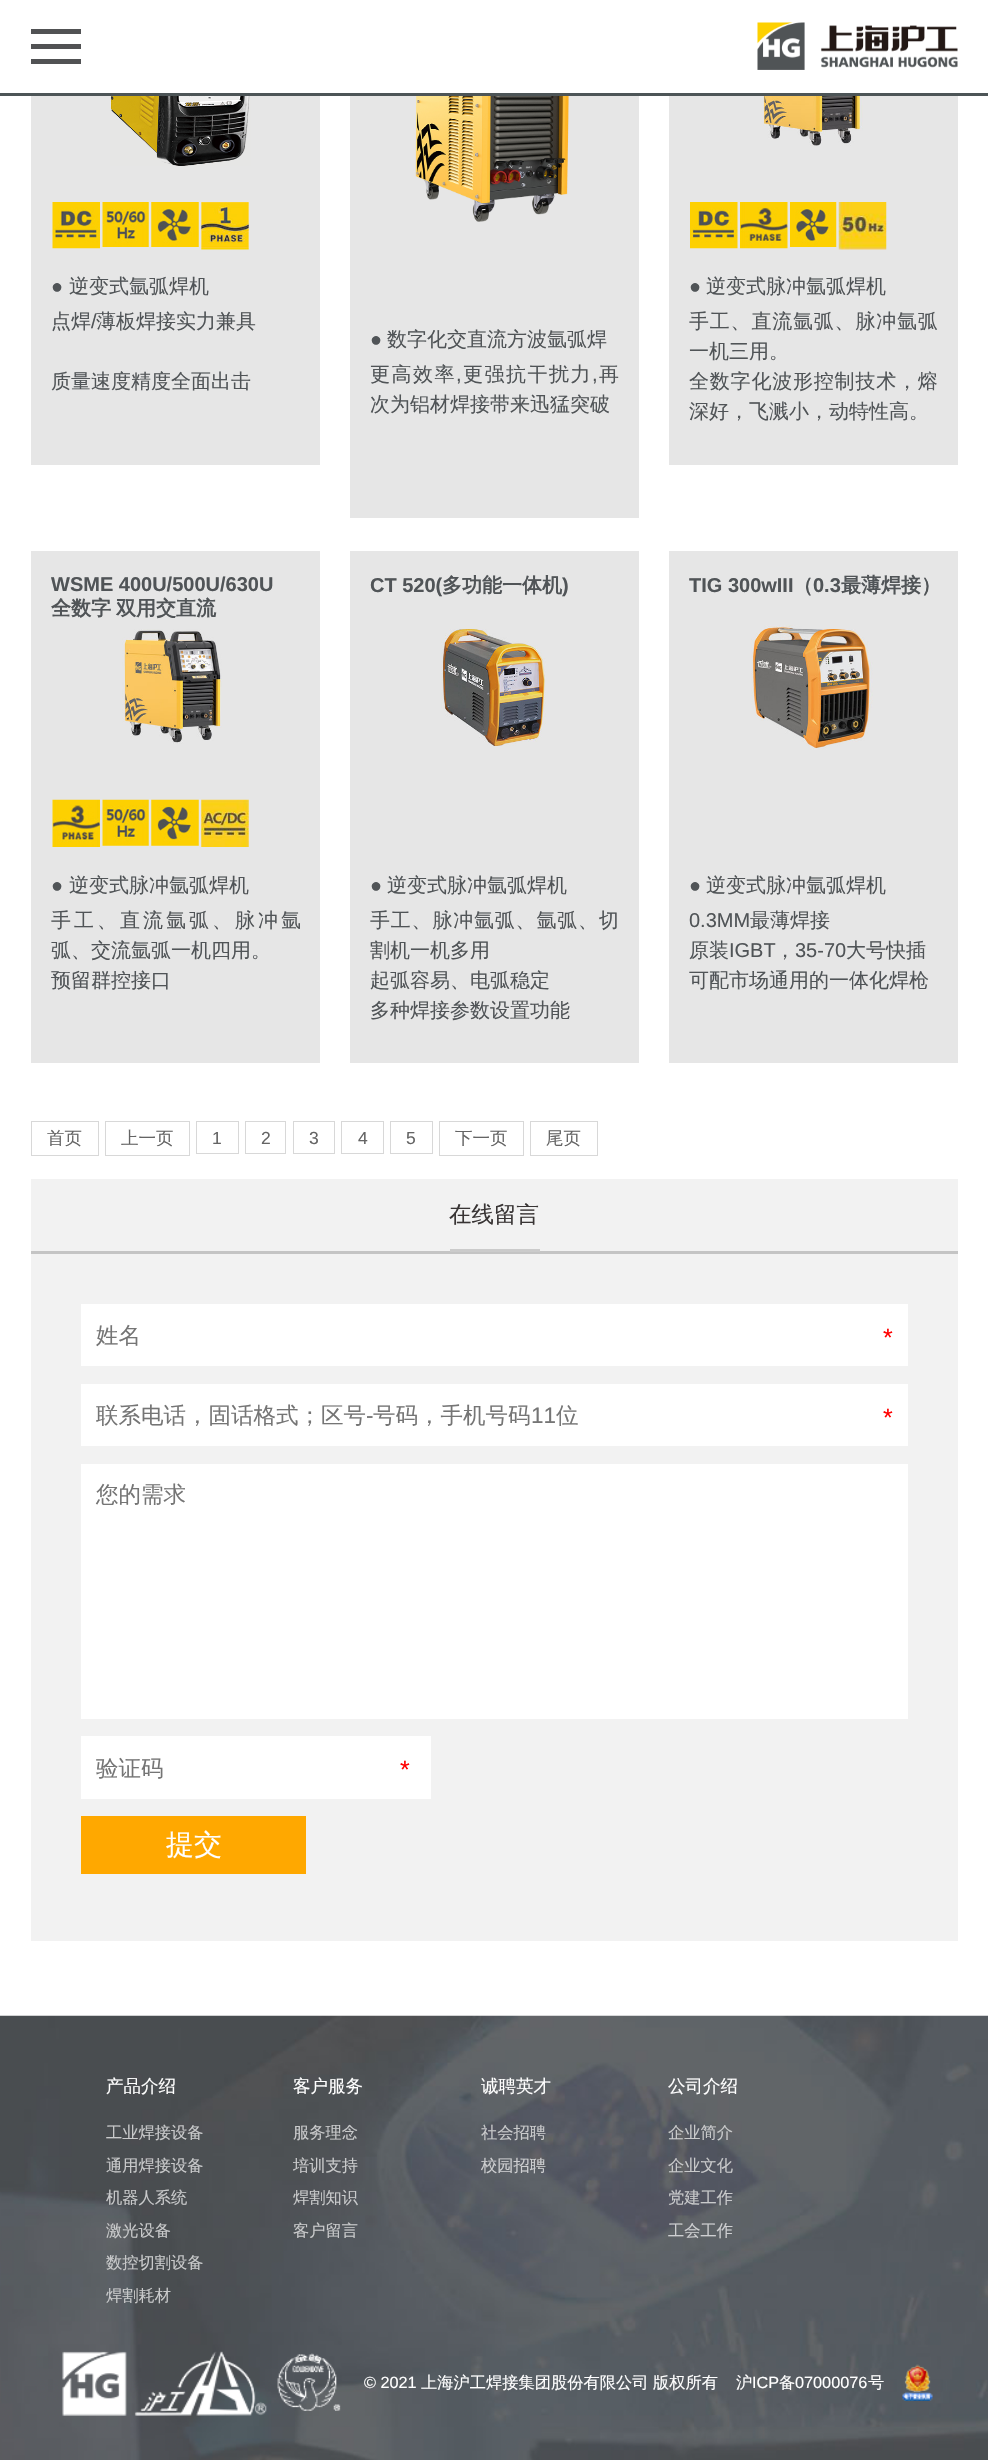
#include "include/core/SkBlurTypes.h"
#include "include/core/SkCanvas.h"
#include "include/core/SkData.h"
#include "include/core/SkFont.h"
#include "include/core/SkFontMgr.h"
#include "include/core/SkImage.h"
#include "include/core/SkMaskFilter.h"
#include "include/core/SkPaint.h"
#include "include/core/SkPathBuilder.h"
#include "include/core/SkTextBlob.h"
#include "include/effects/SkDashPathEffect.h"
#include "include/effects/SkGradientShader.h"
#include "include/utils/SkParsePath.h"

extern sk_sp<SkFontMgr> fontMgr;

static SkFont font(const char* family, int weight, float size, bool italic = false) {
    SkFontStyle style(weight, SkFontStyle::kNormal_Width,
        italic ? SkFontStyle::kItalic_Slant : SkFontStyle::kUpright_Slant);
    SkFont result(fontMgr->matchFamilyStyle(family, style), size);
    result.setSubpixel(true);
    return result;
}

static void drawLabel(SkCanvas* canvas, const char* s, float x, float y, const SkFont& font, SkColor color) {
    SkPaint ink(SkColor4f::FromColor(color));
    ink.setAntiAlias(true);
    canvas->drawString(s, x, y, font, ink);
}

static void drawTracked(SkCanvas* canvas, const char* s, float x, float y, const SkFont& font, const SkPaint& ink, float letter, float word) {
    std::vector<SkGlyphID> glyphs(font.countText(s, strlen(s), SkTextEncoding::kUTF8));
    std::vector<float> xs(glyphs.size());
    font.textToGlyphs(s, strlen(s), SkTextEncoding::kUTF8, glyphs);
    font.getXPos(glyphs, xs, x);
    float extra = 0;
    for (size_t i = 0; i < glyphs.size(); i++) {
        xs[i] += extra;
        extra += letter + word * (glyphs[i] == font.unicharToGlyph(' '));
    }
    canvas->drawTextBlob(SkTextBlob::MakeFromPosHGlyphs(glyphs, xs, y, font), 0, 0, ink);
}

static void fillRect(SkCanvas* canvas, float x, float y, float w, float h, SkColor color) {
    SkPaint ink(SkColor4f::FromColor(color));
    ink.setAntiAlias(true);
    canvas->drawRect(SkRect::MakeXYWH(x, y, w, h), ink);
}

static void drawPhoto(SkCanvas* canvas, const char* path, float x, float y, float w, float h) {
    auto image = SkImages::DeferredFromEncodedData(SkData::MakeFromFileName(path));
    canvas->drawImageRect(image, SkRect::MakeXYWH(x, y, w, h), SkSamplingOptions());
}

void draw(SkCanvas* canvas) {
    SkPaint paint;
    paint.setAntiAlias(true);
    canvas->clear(0xFFFFFFFF);
    fillRect(canvas, 0, 93, 988, 3, 0xFF4D5557);
    fillRect(canvas, 31, 29, 50, 5, 0xFF515254);
    fillRect(canvas, 31, 44, 50, 5, 0xFF515254);
    fillRect(canvas, 31, 59, 50, 5, 0xFF515254);
    drawPhoto(canvas, "assets/img1.png", 757, 22, 201, 48);
    fillRect(canvas, 31, 96, 289, 369, 0xFFE6E6E6);
    drawPhoto(canvas, "assets/img2.png", 110, 96, 141, 70);
    drawPhoto(canvas, "assets/img3.png", 52, 202, 48, 47);
    drawPhoto(canvas, "assets/img4.png", 102, 202, 47, 45);
    drawPhoto(canvas, "assets/img5.png", 151, 202, 48, 45);
    drawPhoto(canvas, "assets/img6.png", 201, 202, 48, 48);
    SkFont font1 = font("Liberation Sans", 400, 20);
    drawLabel(canvas, "●", 51, 293, font1, 0xFF505457);
    SkFont font2 = font("WenQuanYi Zen Hei", 500, 20);
    drawLabel(canvas, "逆变式氩弧焊机", 69, 293, font2, 0xFF505457);
    drawLabel(canvas, "点焊", 51, 328, font2, 0xFF505457);
    drawLabel(canvas, "/", 91, 328, font1, 0xFF505457);
    drawLabel(canvas, "薄板焊接实力兼具", 96, 328, font2, 0xFF505457);
    drawLabel(canvas, "质量速度精度全面出击", 51, 388, font2, 0xFF505457);
    fillRect(canvas, 350, 96, 289, 422, 0xFFE6E6E6);
    drawPhoto(canvas, "assets/img7.png", 415, 96, 154, 126);
    drawLabel(canvas, "●", 370, 346, font1, 0xFF505457);
    drawLabel(canvas, "数字化交直流方波氩弧焊", 387, 346, font2, 0xFF505457);
    paint.setColor(0xFF505457);
    drawTracked(canvas, "更高效率", 370, 381, font2, paint, 1.5f, 0);
    drawTracked(canvas, ",", 456, 381, font1, paint, 1.5f, 0);
    drawTracked(canvas, "更强抗干扰力", 463, 381, font2, paint, 1.5f, 0);
    drawTracked(canvas, ",", 592, 381, font1, paint, 1.5f, 0);
    drawTracked(canvas, "再", 599, 381, font2, paint, 1.5f, 0);
    drawLabel(canvas, "次为铝材焊接带来迅猛突破", 370, 411, font2, 0xFF505457);
    fillRect(canvas, 669, 96, 289, 369, 0xFFE6E6E6);
    drawPhoto(canvas, "assets/img8.png", 763, 96, 100, 50);
    drawPhoto(canvas, "assets/img9.png", 690, 202, 48, 47);
    drawPhoto(canvas, "assets/img10.png", 740, 202, 48, 47);
    drawPhoto(canvas, "assets/img11.png", 790, 202, 47, 45);
    drawPhoto(canvas, "assets/img12.png", 838, 202, 49, 48);
    drawLabel(canvas, "●", 689, 293, font1, 0xFF505457);
    drawLabel(canvas, "逆变式脉冲氩弧焊机", 706, 293, font2, 0xFF505457);
    drawTracked(canvas, "手工、直流氩弧、脉冲氩弧", 689, 328, font2, paint, 0.8f, 0);
    drawLabel(canvas, "一机三用。", 689, 358, font2, 0xFF505457);
    drawTracked(canvas, "全数字化波形控制技术，熔", 689, 388, font2, paint, 0.8f, 0);
    drawLabel(canvas, "深好，飞溅小，动特性高。", 689, 418, font2, 0xFF505457);
    fillRect(canvas, 31, 551, 289, 512, 0xFFE6E6E6);
    SkFont font3 = font("Liberation Sans", 700, 20);
    drawLabel(canvas, "WSME 400U/500U/630U", 51, 591, font3, 0xFF505457);
    SkFont font4 = font("WenQuanYi Zen Hei", 700, 20);
    drawLabel(canvas, "全数字", 51, 615, font4, 0xFF505457);
    drawLabel(canvas, "双用交直流", 116, 615, font4, 0xFF505457);
    drawPhoto(canvas, "assets/img13.png", 122, 629, 100, 115);
    drawPhoto(canvas, "assets/img14.png", 52, 799, 48, 48);
    drawPhoto(canvas, "assets/img15.png", 102, 799, 47, 47);
    drawPhoto(canvas, "assets/img16.png", 151, 799, 48, 47);
    drawPhoto(canvas, "assets/img17.png", 201, 799, 48, 48);
    drawLabel(canvas, "●", 51, 892, font1, 0xFF505457);
    drawLabel(canvas, "逆变式脉冲氩弧焊机", 69, 892, font2, 0xFF505457);
    drawTracked(canvas, "手工、直流氩弧、脉冲氩", 51, 927, font2, paint, 3, 0);
    drawLabel(canvas, "弧、交流氩弧一机四用。", 51, 957, font2, 0xFF505457);
    drawLabel(canvas, "预留群控接口", 51, 987, font2, 0xFF505457);
    fillRect(canvas, 350, 551, 289, 512, 0xFFE6E6E6);
    drawLabel(canvas, "CT 520(", 370, 592, font3, 0xFF505457);
    drawLabel(canvas, "多功能一体机", 442, 592, font4, 0xFF505457);
    drawLabel(canvas, ")", 562, 592, font3, 0xFF505457);
    drawPhoto(canvas, "assets/img18.png", 441, 629, 105, 117);
    drawLabel(canvas, "●", 370, 892, font1, 0xFF505457);
    drawLabel(canvas, "逆变式脉冲氩弧焊机", 387, 892, font2, 0xFF505457);
    drawTracked(canvas, "手工、脉冲氩弧、氩弧、切", 370, 927, font2, paint, 0.8f, 0);
    drawLabel(canvas, "割机一机多用", 370, 957, font2, 0xFF505457);
    drawLabel(canvas, "起弧容易、电弧稳定", 370, 987, font2, 0xFF505457);
    drawLabel(canvas, "多种焊接参数设置功能", 370, 1017, font2, 0xFF505457);
    fillRect(canvas, 669, 551, 289, 512, 0xFFE6E6E6);
    drawLabel(canvas, "TIG 300wIII", 689, 592, font3, 0xFF505457);
    drawLabel(canvas, "（", 793, 592, font4, 0xFF505457);
    drawLabel(canvas, "0.3", 813, 592, font3, 0xFF505457);
    drawLabel(canvas, "最薄焊接）", 841, 592, font4, 0xFF505457);
    drawPhoto(canvas, "assets/img19.png", 751, 625, 122, 125);
    drawLabel(canvas, "●", 689, 892, font1, 0xFF505457);
    drawLabel(canvas, "逆变式脉冲氩弧焊机", 706, 892, font2, 0xFF505457);
    drawLabel(canvas, "0.3MM", 689, 927, font1, 0xFF505457);
    drawLabel(canvas, "最薄焊接", 750, 927, font2, 0xFF505457);
    drawLabel(canvas, "原装", 689, 957, font2, 0xFF505457);
    drawLabel(canvas, "IGBT", 729, 957, font1, 0xFF505457);
    drawLabel(canvas, "，", 775, 957, font2, 0xFF505457);
    drawLabel(canvas, "35-70", 795, 957, font1, 0xFF505457);
    drawLabel(canvas, "大号快插", 846, 957, font2, 0xFF505457);
    drawLabel(canvas, "可配市场通用的一体化焊枪", 689, 987, font2, 0xFF505457);
    paint.setStroke(true);
    paint.setStrokeWidth(1);
    paint.setColor(0xFFD8D8D8);
    canvas->drawRect(SkRect::MakeXYWH(31.5f, 1121.5f, 67, 34), paint);
    SkFont font5 = font("WenQuanYi Zen Hei", 500, 17.5f);
    drawLabel(canvas, "首页", 47, 1144, font5, 0xFF646464);
    canvas->drawRect(SkRect::MakeXYWH(105.5f, 1121.5f, 84, 34), paint);
    drawLabel(canvas, "上一页", 121, 1144, font5, 0xFF646464);
    canvas->drawRect(SkRect::MakeXYWH(196.5f, 1121.5f, 42, 32), paint);
    SkFont font6 = font("Liberation Sans", 400, 17.5f);
    drawLabel(canvas, "1", 212, 1144, font6, 0xFF646464);
    canvas->drawRect(SkRect::MakeXYWH(245.5f, 1121.5f, 40, 32), paint);
    drawLabel(canvas, "2", 261, 1144, font6, 0xFF646464);
    canvas->drawRect(SkRect::MakeXYWH(293.5f, 1121.5f, 41, 32), paint);
    drawLabel(canvas, "3", 309, 1144, font6, 0xFF646464);
    canvas->drawRect(SkRect::MakeXYWH(341.5f, 1121.5f, 42, 32), paint);
    drawLabel(canvas, "4", 358, 1144, font6, 0xFF646464);
    canvas->drawRect(SkRect::MakeXYWH(390.5f, 1121.5f, 42, 32), paint);
    drawLabel(canvas, "5", 406, 1144, font6, 0xFF646464);
    canvas->drawRect(SkRect::MakeXYWH(439.5f, 1121.5f, 84, 34), paint);
    drawLabel(canvas, "下一页", 455, 1144, font5, 0xFF646464);
    canvas->drawRect(SkRect::MakeXYWH(530.5f, 1121.5f, 67, 34), paint);
    drawLabel(canvas, "尾页", 546, 1144, font5, 0xFF646464);
    fillRect(canvas, 31, 1179, 927, 762, 0xFFF2F2F2);
    fillRect(canvas, 31, 1251, 927, 3, 0xFFC4C4C4);
    SkFont font7 = font("WenQuanYi Zen Hei", 500, 22.5f);
    drawLabel(canvas, "在线留言", 449, 1222, font7, 0xFF383434);
    fillRect(canvas, 450, 1249, 90, 3, 0xFFCBCBCB);
    fillRect(canvas, 81, 1304, 827, 62, 0xFFFFFFFF);
    drawLabel(canvas, "姓名", 96, 1343, font7, 0xFF757575);
    SkFont font8 = font("Liberation Sans", 400, 25);
    drawLabel(canvas, "*", 883, 1346, font8, 0xFFFF0000);
    fillRect(canvas, 81, 1384, 827, 62, 0xFFFFFFFF);
    drawLabel(canvas, "联系电话，固话格式；区号", 96, 1423, font7, 0xFF757575);
    SkFont font9 = font("Liberation Sans", 400, 22.5f);
    drawLabel(canvas, "-", 366, 1423, font9, 0xFF757575);
    drawLabel(canvas, "号码，手机号码", 373, 1423, font7, 0xFF757575);
    drawLabel(canvas, "11", 531, 1423, font9, 0xFF757575);
    drawLabel(canvas, "位", 556, 1423, font7, 0xFF757575);
    drawLabel(canvas, "*", 883, 1426, font8, 0xFFFF0000);
    fillRect(canvas, 81, 1464, 827, 255, 0xFFFFFFFF);
    drawLabel(canvas, "您的需求", 96, 1502, font7, 0xFF757575);
    fillRect(canvas, 81, 1736, 350, 63, 0xFFFFFFFF);
    drawLabel(canvas, "验证码", 96, 1776, font7, 0xFF757575);
    drawLabel(canvas, "*", 400, 1778, font8, 0xFFFF0000);
    fillRect(canvas, 81, 1816, 225, 58, 0xFFFFA800);
    SkFont font10 = font("WenQuanYi Zen Hei", 500, 28);
    drawLabel(canvas, "提交", 166, 1854, font10, 0xFFFFFFFF);
    drawPhoto(canvas, "assets/img20.png", 0, 2015, 988, 445);
    drawLabel(canvas, "产品介绍", 106, 2092, font5, 0xFFFFFFFF);
    SkFont font11 = font("WenQuanYi Zen Hei", 500, 16.25f);
    drawLabel(canvas, "工业焊接设备", 106, 2138, font11, 0xFFC9CACB);
    drawLabel(canvas, "通用焊接设备", 106, 2171, font11, 0xFFC9CACB);
    drawLabel(canvas, "机器人系统", 106, 2203, font11, 0xFFC9CACB);
    drawLabel(canvas, "激光设备", 106, 2236, font11, 0xFFC9CACB);
    drawLabel(canvas, "数控切割设备", 106, 2268, font11, 0xFFC9CACB);
    drawLabel(canvas, "焊割耗材", 106, 2301, font11, 0xFFC9CACB);
    drawLabel(canvas, "客户服务", 293, 2092, font5, 0xFFFFFFFF);
    drawLabel(canvas, "服务理念", 293, 2138, font11, 0xFFC9CACB);
    drawLabel(canvas, "培训支持", 293, 2171, font11, 0xFFC9CACB);
    drawLabel(canvas, "焊割知识", 293, 2203, font11, 0xFFC9CACB);
    drawLabel(canvas, "客户留言", 293, 2236, font11, 0xFFC9CACB);
    drawLabel(canvas, "诚聘英才", 481, 2092, font5, 0xFFFFFFFF);
    drawLabel(canvas, "社会招聘", 481, 2138, font11, 0xFFC9CACB);
    drawLabel(canvas, "校园招聘", 481, 2171, font11, 0xFFCECFD1);
    drawLabel(canvas, "公司介绍", 668, 2092, font5, 0xFFFFFFFF);
    drawLabel(canvas, "企业简介", 668, 2138, font11, 0xFFC9CACB);
    drawLabel(canvas, "企业文化", 668, 2171, font11, 0xFFC9CACB);
    drawLabel(canvas, "党建工作", 668, 2203, font11, 0xFFC9CACB);
    drawLabel(canvas, "工会工作", 668, 2236, font11, 0xFFCECFD1);
    drawPhoto(canvas, "assets/img21.png", 62, 2351, 65, 65);
    drawPhoto(canvas, "assets/img22.png", 134, 2351, 133, 65);
    drawPhoto(canvas, "assets/img23.png", 277, 2353, 64, 58);
    SkFont font12 = font("Liberation Sans", 400, 16.25f);
    drawLabel(canvas, "© 2021", 364, 2388, font12, 0xFFFFFFFF);
    drawLabel(canvas, "上海沪工焊接集团股份有限公司", 421, 2388, font11, 0xFFFFFFFF);
    drawLabel(canvas, "版权所有", 653, 2388, font11, 0xFFFFFFFF);
    drawLabel(canvas, "沪", 736, 2388, font11, 0xFFFFFFFF);
    drawLabel(canvas, "ICP", 752, 2388, font12, 0xFFFFFFFF);
    drawLabel(canvas, "备", 779, 2388, font11, 0xFFFFFFFF);
    drawLabel(canvas, "07000076", 795, 2388, font12, 0xFFFFFFFF);
    drawLabel(canvas, "号", 868, 2388, font11, 0xFFFFFFFF);
    drawPhoto(canvas, "assets/img24.png", 902, 2364, 31, 37);
}
